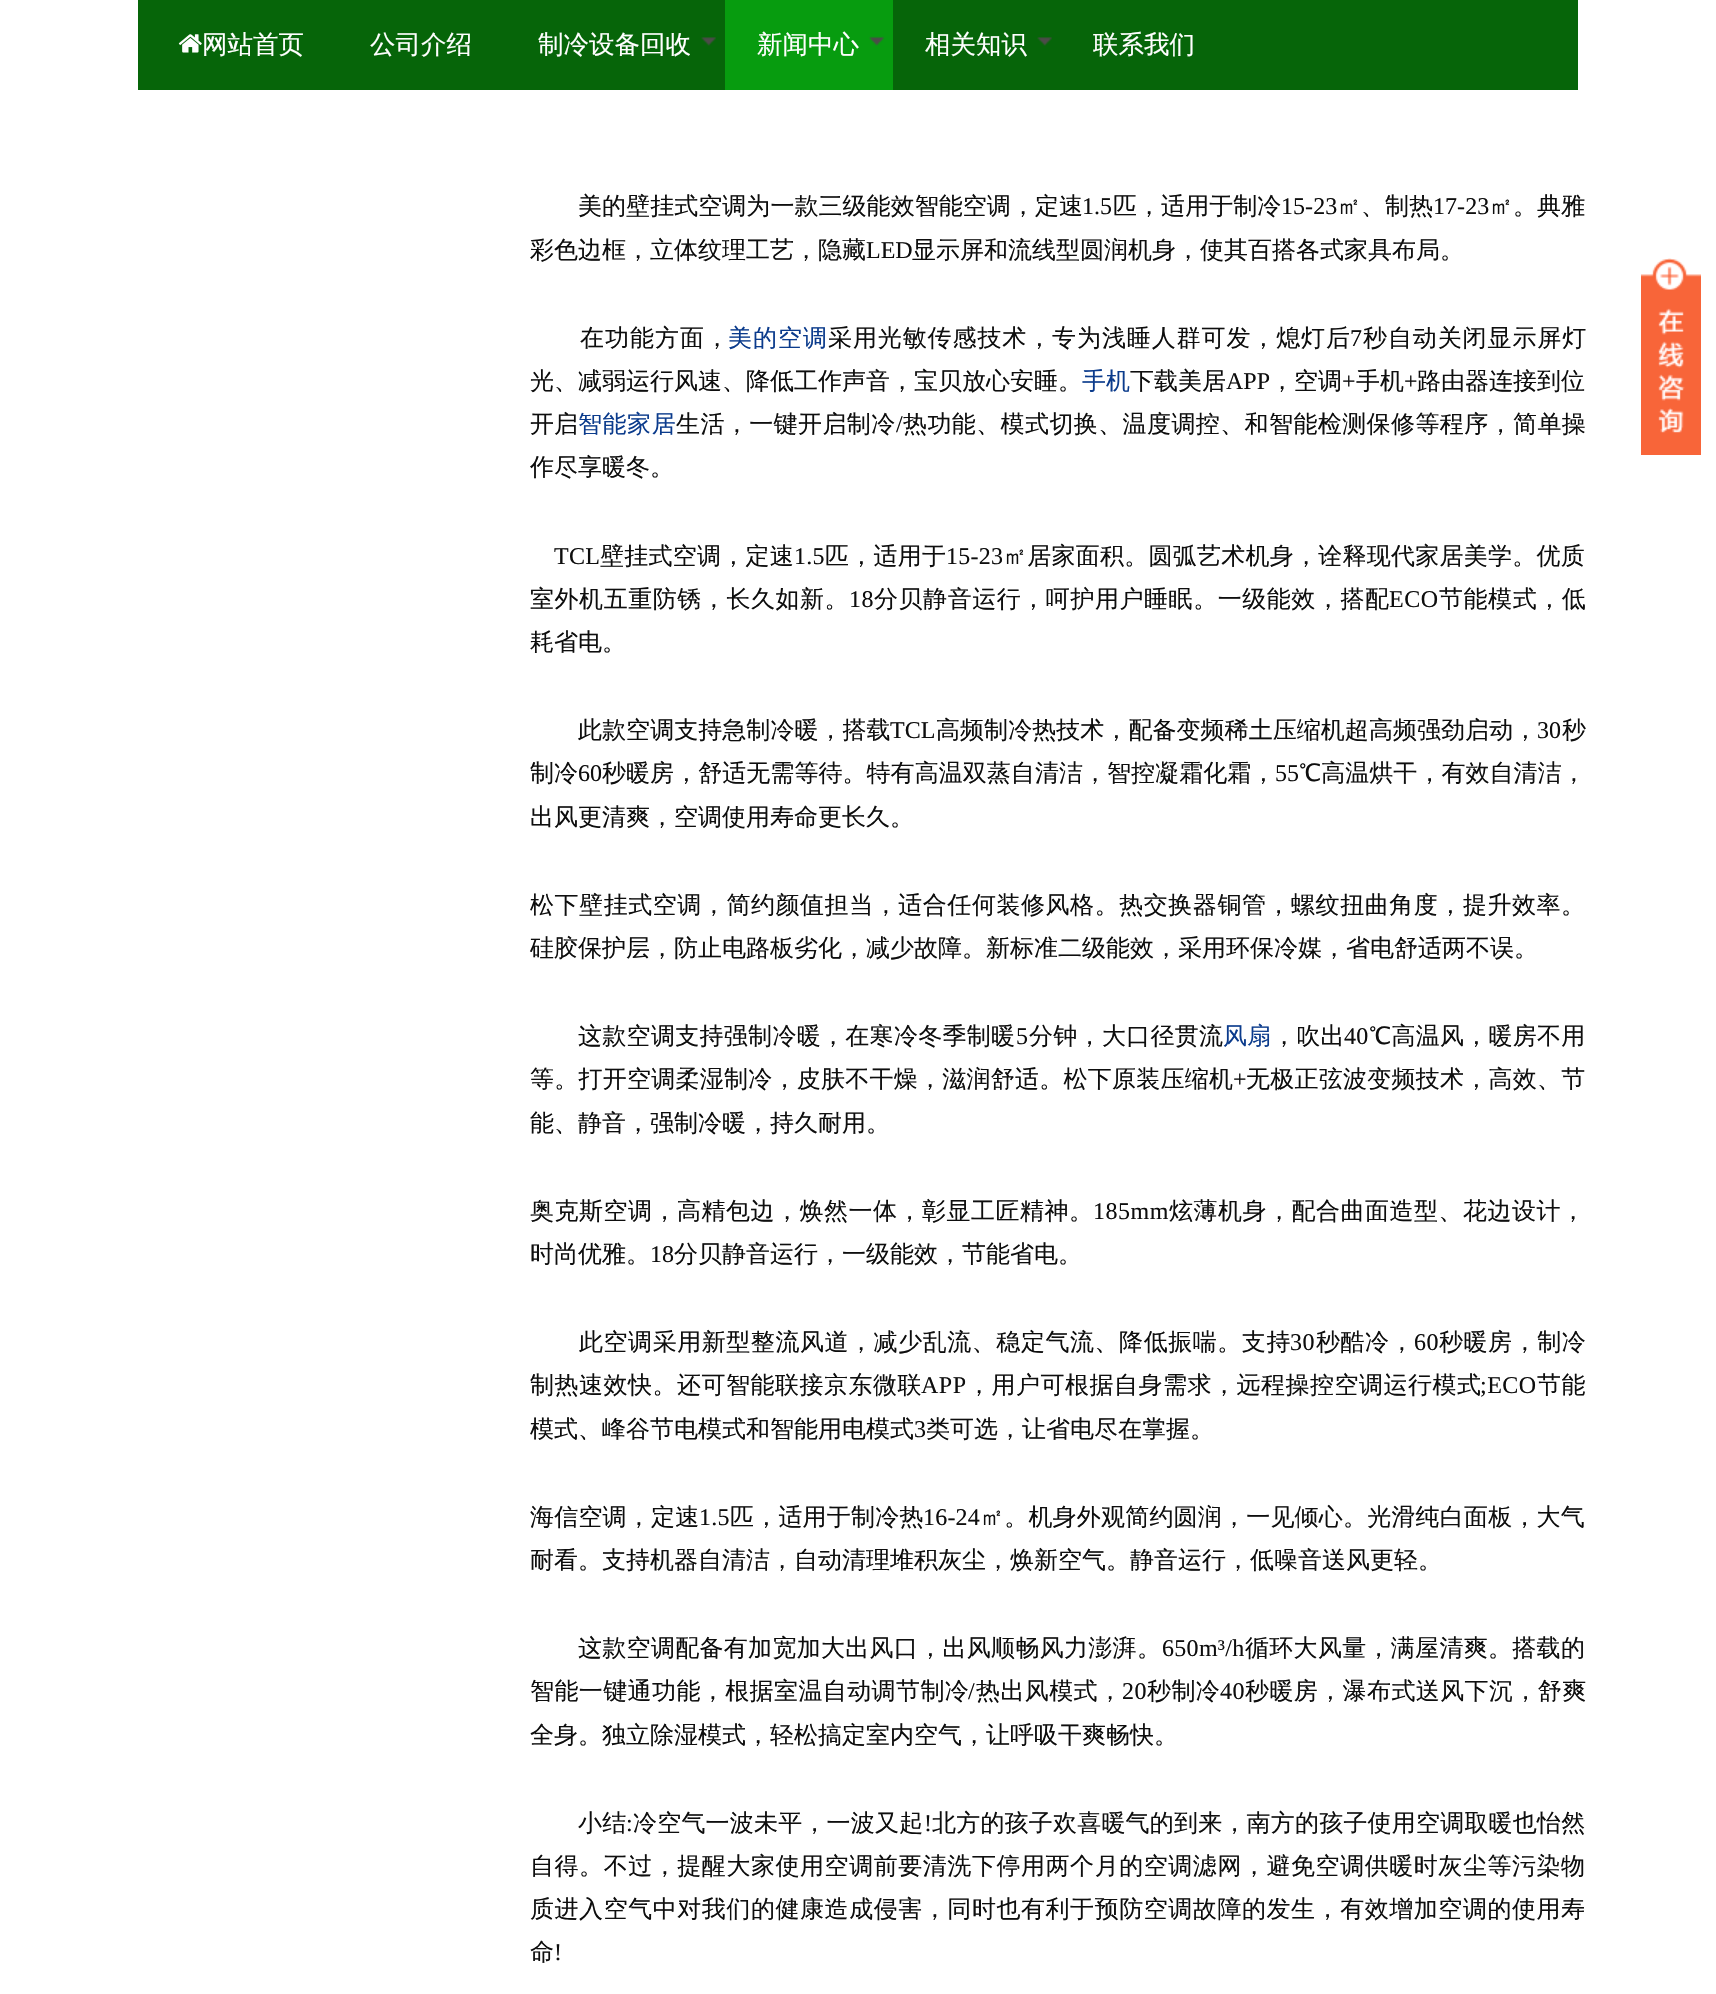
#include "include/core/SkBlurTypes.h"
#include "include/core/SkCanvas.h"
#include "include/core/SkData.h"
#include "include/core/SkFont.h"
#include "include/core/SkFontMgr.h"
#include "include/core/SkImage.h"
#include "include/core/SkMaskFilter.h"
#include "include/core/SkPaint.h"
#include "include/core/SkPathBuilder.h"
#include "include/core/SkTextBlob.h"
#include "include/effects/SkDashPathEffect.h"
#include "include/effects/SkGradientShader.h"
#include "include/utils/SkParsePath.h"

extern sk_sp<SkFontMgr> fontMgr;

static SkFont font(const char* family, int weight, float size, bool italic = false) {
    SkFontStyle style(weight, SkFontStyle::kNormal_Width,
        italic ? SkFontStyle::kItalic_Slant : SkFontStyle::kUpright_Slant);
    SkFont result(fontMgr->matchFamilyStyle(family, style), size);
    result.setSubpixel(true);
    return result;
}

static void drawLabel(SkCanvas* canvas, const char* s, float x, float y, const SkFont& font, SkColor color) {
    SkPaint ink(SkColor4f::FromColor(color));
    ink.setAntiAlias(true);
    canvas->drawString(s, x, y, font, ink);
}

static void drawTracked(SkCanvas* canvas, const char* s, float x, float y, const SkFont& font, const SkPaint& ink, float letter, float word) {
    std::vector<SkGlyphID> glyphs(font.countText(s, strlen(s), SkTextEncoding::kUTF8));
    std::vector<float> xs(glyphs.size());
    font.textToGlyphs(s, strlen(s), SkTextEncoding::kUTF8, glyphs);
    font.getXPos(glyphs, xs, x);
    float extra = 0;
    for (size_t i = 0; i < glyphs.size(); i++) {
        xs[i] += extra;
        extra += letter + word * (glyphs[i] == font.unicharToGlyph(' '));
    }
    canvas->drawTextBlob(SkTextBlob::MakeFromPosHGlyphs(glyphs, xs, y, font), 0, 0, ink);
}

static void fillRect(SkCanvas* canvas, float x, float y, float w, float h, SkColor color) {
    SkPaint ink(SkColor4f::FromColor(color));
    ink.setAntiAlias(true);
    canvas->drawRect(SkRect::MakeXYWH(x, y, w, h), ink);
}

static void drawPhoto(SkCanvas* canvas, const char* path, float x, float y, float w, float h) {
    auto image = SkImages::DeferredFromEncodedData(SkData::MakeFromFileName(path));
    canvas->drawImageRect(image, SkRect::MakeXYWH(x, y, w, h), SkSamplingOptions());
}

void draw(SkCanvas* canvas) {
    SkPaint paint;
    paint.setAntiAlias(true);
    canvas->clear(0xFFFFFFFF);
    fillRect(canvas, 138, 0, 1440, 90, 0xFF066509);
    drawPhoto(canvas, "assets/img1.png", 178, 34, 24, 19);
    SkFont font1 = font("WenQuanYi Zen Hei", 500, 25.5f);
    drawLabel(canvas, "网站首页", 202, 53, font1, 0xFFFFFFFF);
    drawLabel(canvas, "公司介绍", 370, 53, font1, 0xFFFFFFFF);
    drawLabel(canvas, "制冷设备回收", 538, 53, font1, 0xFFFFFFFF);
    drawPhoto(canvas, "assets/img2.png", 701, 37, 15, 9);
    fillRect(canvas, 725, 0, 168, 90, 0xFF079C0F);
    drawLabel(canvas, "新闻中心", 757, 53, font1, 0xFFFFFFFF);
    drawPhoto(canvas, "assets/img3.png", 869, 36, 16, 10);
    drawLabel(canvas, "相关知识", 925, 53, font1, 0xFFFFFFFF);
    drawPhoto(canvas, "assets/img2.png", 1037, 37, 15, 9);
    drawLabel(canvas, "联系我们", 1093, 53, font1, 0xFFFFFFFF);
    SkFont font2 = font("WenQuanYi Zen Hei", 500, 24);
    paint.setColor(0xFF0E0E0E);
    drawTracked(canvas, "美的壁挂式空调为一款三级能效智能空调，定速", 578, 214, font2, paint, 0.05f, 0);
    SkFont font3 = font("Liberation Serif", 400, 24);
    drawTracked(canvas, "1.5", 1082, 214, font3, paint, 0.05f, 0);
    drawTracked(canvas, "匹，适用于制冷", 1113, 214, font2, paint, 0.05f, 0);
    drawTracked(canvas, "15-23", 1281, 214, font3, paint, 0.05f, 0);
    drawTracked(canvas, "㎡、制热", 1337, 214, font2, paint, 0.05f, 0);
    drawTracked(canvas, "17-23", 1433, 214, font3, paint, 0.05f, 0);
    drawTracked(canvas, "㎡。典雅", 1489, 214, font2, paint, 0.05f, 0);
    drawLabel(canvas, "彩色边框，立体纹理工艺，隐藏", 530, 258, font2, 0xFF0E0E0E);
    drawLabel(canvas, "LED", 866, 258, font3, 0xFF0E0E0E);
    drawLabel(canvas, "显示屏和流线型圆润机身，使其百搭各式家具布局。", 912, 258, font2, 0xFF0E0E0E);
    drawTracked(canvas, "在功能方面，", 580, 346, font2, paint, 1, 0);
    paint.setColor(0xFF0B3B8C);
    drawTracked(canvas, "美的空调", 728, 346, font2, paint, 1, 0);
    paint.setColor(0xFF0E0E0E);
    drawTracked(canvas, "采用光敏传感技术，专为浅睡人群可发，熄灯后", 828, 346, font2, paint, 0.9f, 0);
    drawTracked(canvas, "7", 1350, 346, font3, paint, 0.9f, 0);
    drawTracked(canvas, "秒自动关闭显示屏灯", 1363, 346, font2, paint, 0.9f, 0);
    drawLabel(canvas, "光、减弱运行风速、降低工作声音，宝贝放心安睡。", 530, 389, font2, 0xFF0E0E0E);
    drawLabel(canvas, "手机", 1082, 389, font2, 0xFF0B3B8C);
    drawLabel(canvas, "下载美居", 1130, 389, font2, 0xFF0E0E0E);
    drawLabel(canvas, "APP", 1226, 389, font3, 0xFF0E0E0E);
    drawLabel(canvas, "，空调", 1270, 389, font2, 0xFF0E0E0E);
    drawLabel(canvas, "+", 1342, 389, font3, 0xFF0E0E0E);
    drawLabel(canvas, "手机", 1356, 389, font2, 0xFF0E0E0E);
    drawLabel(canvas, "+", 1404, 389, font3, 0xFF0E0E0E);
    drawLabel(canvas, "路由器连接到位", 1417, 389, font2, 0xFF0E0E0E);
    drawLabel(canvas, "开启", 530, 432, font2, 0xFF0E0E0E);
    paint.setColor(0xFF0B3B8C);
    drawTracked(canvas, "智能家居", 578, 432, font2, paint, 0.55f, 0);
    paint.setColor(0xFF0E0E0E);
    drawTracked(canvas, "生活，一键开启制冷", 676, 432, font2, paint, 0.4f, 0);
    drawTracked(canvas, "/", 896, 432, font3, paint, 0.4f, 0);
    drawTracked(canvas, "热功能、模式切换、温度调控、和智能检测保修等程序，简单操", 903, 432, font2, paint, 0.4f, 0);
    drawLabel(canvas, "作尽享暖冬。", 530, 475, font2, 0xFF0E0E0E);
    drawTracked(canvas, "TCL", 554, 564, font3, paint, 0.25f, 0);
    drawTracked(canvas, "壁挂式空调，定速", 600, 564, font2, paint, 0.25f, 0);
    drawTracked(canvas, "1.5", 794, 564, font3, paint, 0.25f, 0);
    drawTracked(canvas, "匹，适用于", 825, 564, font2, paint, 0.25f, 0);
    drawTracked(canvas, "15-23", 946, 564, font3, paint, 0.25f, 0);
    drawTracked(canvas, "㎡居家面积。圆弧艺术机身，诠释现代家居美学。优质", 1003, 564, font2, paint, 0.25f, 0);
    drawTracked(canvas, "室外机五重防锈，长久如新。", 530, 607, font2, paint, 0.55f, 0);
    drawTracked(canvas, "18", 849, 607, font3, paint, 0.55f, 0);
    drawTracked(canvas, "分贝静音运行，呵护用户睡眠。一级能效，搭配", 874, 607, font2, paint, 0.55f, 0);
    drawTracked(canvas, "ECO", 1389, 607, font3, paint, 0.55f, 0);
    drawTracked(canvas, "节能模式，低", 1439, 607, font2, paint, 0.55f, 0);
    drawLabel(canvas, "耗省电。", 530, 650, font2, 0xFF0E0E0E);
    drawTracked(canvas, "此款空调支持急制冷暖，搭载", 578, 738, font2, paint, 0.05f, 0);
    drawTracked(canvas, "TCL", 890, 738, font3, paint, 0.05f, 0);
    drawTracked(canvas, "高频制冷热技术，配备变频稀土压缩机超高频强劲启动，", 936, 738, font2, paint, 0.05f, 0);
    drawTracked(canvas, "30", 1537, 738, font3, paint, 0.05f, 0);
    drawTracked(canvas, "秒", 1562, 738, font2, paint, 0.05f, 0);
    drawTracked(canvas, "制冷", 530, 781, font2, paint, 0.05f, 0);
    drawTracked(canvas, "60", 578, 781, font3, paint, 0.05f, 0);
    drawTracked(canvas, "秒暖房，舒适无需等待。特有高温双蒸自清洁，智控凝霜化霜，", 602, 781, font2, paint, 0.05f, 0);
    drawTracked(canvas, "55", 1275, 781, font3, paint, 0.05f, 0);
    drawTracked(canvas, "℃高温烘干，有效自清洁，", 1299, 781, font2, paint, 0.05f, 0);
    drawLabel(canvas, "出风更清爽，空调使用寿命更长久。", 530, 825, font2, 0xFF0E0E0E);
    drawTracked(canvas, "松下壁挂式空调，简约颜值担当，适合任何装修风格。热交换器铜管，螺纹扭曲角度，提升效率。", 530, 913, font2, paint, 0.55f, 0);
    drawLabel(canvas, "硅胶保护层，防止电路板劣化，减少故障。新标准二级能效，采用环保冷媒，省电舒适两不误。", 530, 956, font2, 0xFF0E0E0E);
    drawTracked(canvas, "这款空调支持强制冷暖，在寒冷冬季制暖", 578, 1044, font2, paint, 0.3f, 0);
    drawTracked(canvas, "5", 1016, 1044, font3, paint, 0.3f, 0);
    drawTracked(canvas, "分钟，大口径贯流", 1029, 1044, font2, paint, 0.3f, 0);
    drawLabel(canvas, "风扇", 1223, 1044, font2, 0xFF0B3B8C);
    drawTracked(canvas, "，吹出", 1272, 1044, font2, paint, 0.25f, 0);
    drawTracked(canvas, "40", 1344, 1044, font3, paint, 0.25f, 0);
    drawTracked(canvas, "℃高温风，暖房不用", 1369, 1044, font2, paint, 0.25f, 0);
    drawTracked(canvas, "等。打开空调柔湿制冷，皮肤不干燥，滋润舒适。松下原装压缩机", 530, 1087, font2, paint, 0.25f, 0);
    drawTracked(canvas, "+", 1233, 1087, font3, paint, 0.25f, 0);
    drawTracked(canvas, "无极正弦波变频技术，高效、节", 1246, 1087, font2, paint, 0.25f, 0);
    drawLabel(canvas, "能、静音，强制冷暖，持久耐用。", 530, 1131, font2, 0xFF0E0E0E);
    drawTracked(canvas, "奥克斯空调，高精包边，焕然一体，彰显工匠精神。", 530, 1219, font2, paint, 0.5f, 0);
    drawTracked(canvas, "185mm", 1093, 1219, font3, paint, 0.5f, 0);
    drawTracked(canvas, "炫薄机身，配合曲面造型、花边设计，", 1169, 1219, font2, paint, 0.5f, 0);
    drawLabel(canvas, "时尚优雅。", 530, 1262, font2, 0xFF0E0E0E);
    drawLabel(canvas, "18", 650, 1262, font3, 0xFF0E0E0E);
    drawLabel(canvas, "分贝静音运行，一级能效，节能省电。", 674, 1262, font2, 0xFF0E0E0E);
    drawTracked(canvas, "此空调采用新型整流风道，减少乱流、稳定气流、降低振喘。支持", 579, 1350, font2, paint, 0.55f, 0);
    drawTracked(canvas, "30", 1290, 1350, font3, paint, 0.55f, 0);
    drawTracked(canvas, "秒酷冷，", 1316, 1350, font2, paint, 0.55f, 0);
    drawTracked(canvas, "60", 1414, 1350, font3, paint, 0.55f, 0);
    drawTracked(canvas, "秒暖房，制冷", 1439, 1350, font2, paint, 0.55f, 0);
    drawTracked(canvas, "制热速效快。还可智能联接京东微联", 530, 1393, font2, paint, 0.5f, 0);
    drawTracked(canvas, "APP", 921, 1393, font3, paint, 0.5f, 0);
    drawTracked(canvas, "，用户可根据自身需求，远程操控空调运行模式", 967, 1393, font2, paint, 0.5f, 0);
    drawTracked(canvas, ";ECO", 1480, 1393, font3, paint, 0.5f, 0);
    drawTracked(canvas, "节能", 1537, 1393, font2, paint, 0.5f, 0);
    drawLabel(canvas, "模式、峰谷节电模式和智能用电模式", 530, 1437, font2, 0xFF0E0E0E);
    drawLabel(canvas, "3", 914, 1437, font3, 0xFF0E0E0E);
    drawLabel(canvas, "类可选，让省电尽在掌握。", 926, 1437, font2, 0xFF0E0E0E);
    drawTracked(canvas, "海信空调，定速", 530, 1525, font2, paint, 0.2f, 0);
    drawTracked(canvas, "1.5", 699, 1525, font3, paint, 0.2f, 0);
    drawTracked(canvas, "匹，适用于制冷热", 730, 1525, font2, paint, 0.2f, 0);
    drawTracked(canvas, "16-24", 923, 1525, font3, paint, 0.2f, 0);
    drawTracked(canvas, "㎡。机身外观简约圆润，一见倾心。光滑纯白面板，大气", 980, 1525, font2, paint, 0.2f, 0);
    drawLabel(canvas, "耐看。支持机器自清洁，自动清理堆积灰尘，焕新空气。静音运行，低噪音送风更轻。", 530, 1568, font2, 0xFF0E0E0E);
    drawTracked(canvas, "这款空调配备有加宽加大出风口，出风顺畅风力澎湃。", 578, 1656, font2, paint, 0.3f, 0);
    drawTracked(canvas, "650m³/h", 1162, 1656, font3, paint, 0.3f, 0);
    drawTracked(canvas, "循环大风量，满屋清爽。搭载的", 1245, 1656, font2, paint, 0.3f, 0);
    drawTracked(canvas, "智能一键通功能，根据室温自动调节制冷", 530, 1699, font2, paint, 0.4f, 0);
    drawTracked(canvas, "/", 968, 1699, font3, paint, 0.4f, 0);
    drawTracked(canvas, "热出风模式，", 976, 1699, font2, paint, 0.4f, 0);
    drawTracked(canvas, "20", 1122, 1699, font3, paint, 0.4f, 0);
    drawTracked(canvas, "秒制冷", 1147, 1699, font2, paint, 0.4f, 0);
    drawTracked(canvas, "40", 1220, 1699, font3, paint, 0.4f, 0);
    drawTracked(canvas, "秒暖房，瀑布式送风下沉，舒爽", 1245, 1699, font2, paint, 0.4f, 0);
    drawLabel(canvas, "全身。独立除湿模式，轻松搞定室内空气，让呼吸干爽畅快。", 530, 1743, font2, 0xFF0E0E0E);
    drawTracked(canvas, "小结", 578, 1831, font2, paint, 0.2f, 0);
    drawTracked(canvas, ":", 626, 1831, font3, paint, 0.2f, 0);
    drawTracked(canvas, "冷空气一波未平，一波又起", 633, 1831, font2, paint, 0.2f, 0);
    drawTracked(canvas, "!", 924, 1831, font3, paint, 0.2f, 0);
    drawTracked(canvas, "北方的孩子欢喜暖气的到来，南方的孩子使用空调取暖也怡然", 932, 1831, font2, paint, 0.2f, 0);
    drawTracked(canvas, "自得。不过，提醒大家使用空调前要清洗下停用两个月的空调滤网，避免空调供暖时灰尘等污染物", 530, 1874, font2, paint, 0.55f, 0);
    drawTracked(canvas, "质进入空气中对我们的健康造成侵害，同时也有利于预防空调故障的发生，有效增加空调的使用寿", 530, 1917, font2, paint, 0.55f, 0);
    drawLabel(canvas, "命", 530, 1960, font2, 0xFF0E0E0E);
    drawLabel(canvas, "!", 554, 1960, font3, 0xFF0E0E0E);
    drawPhoto(canvas, "assets/img4.png", 1641, 258, 60, 197);
}
